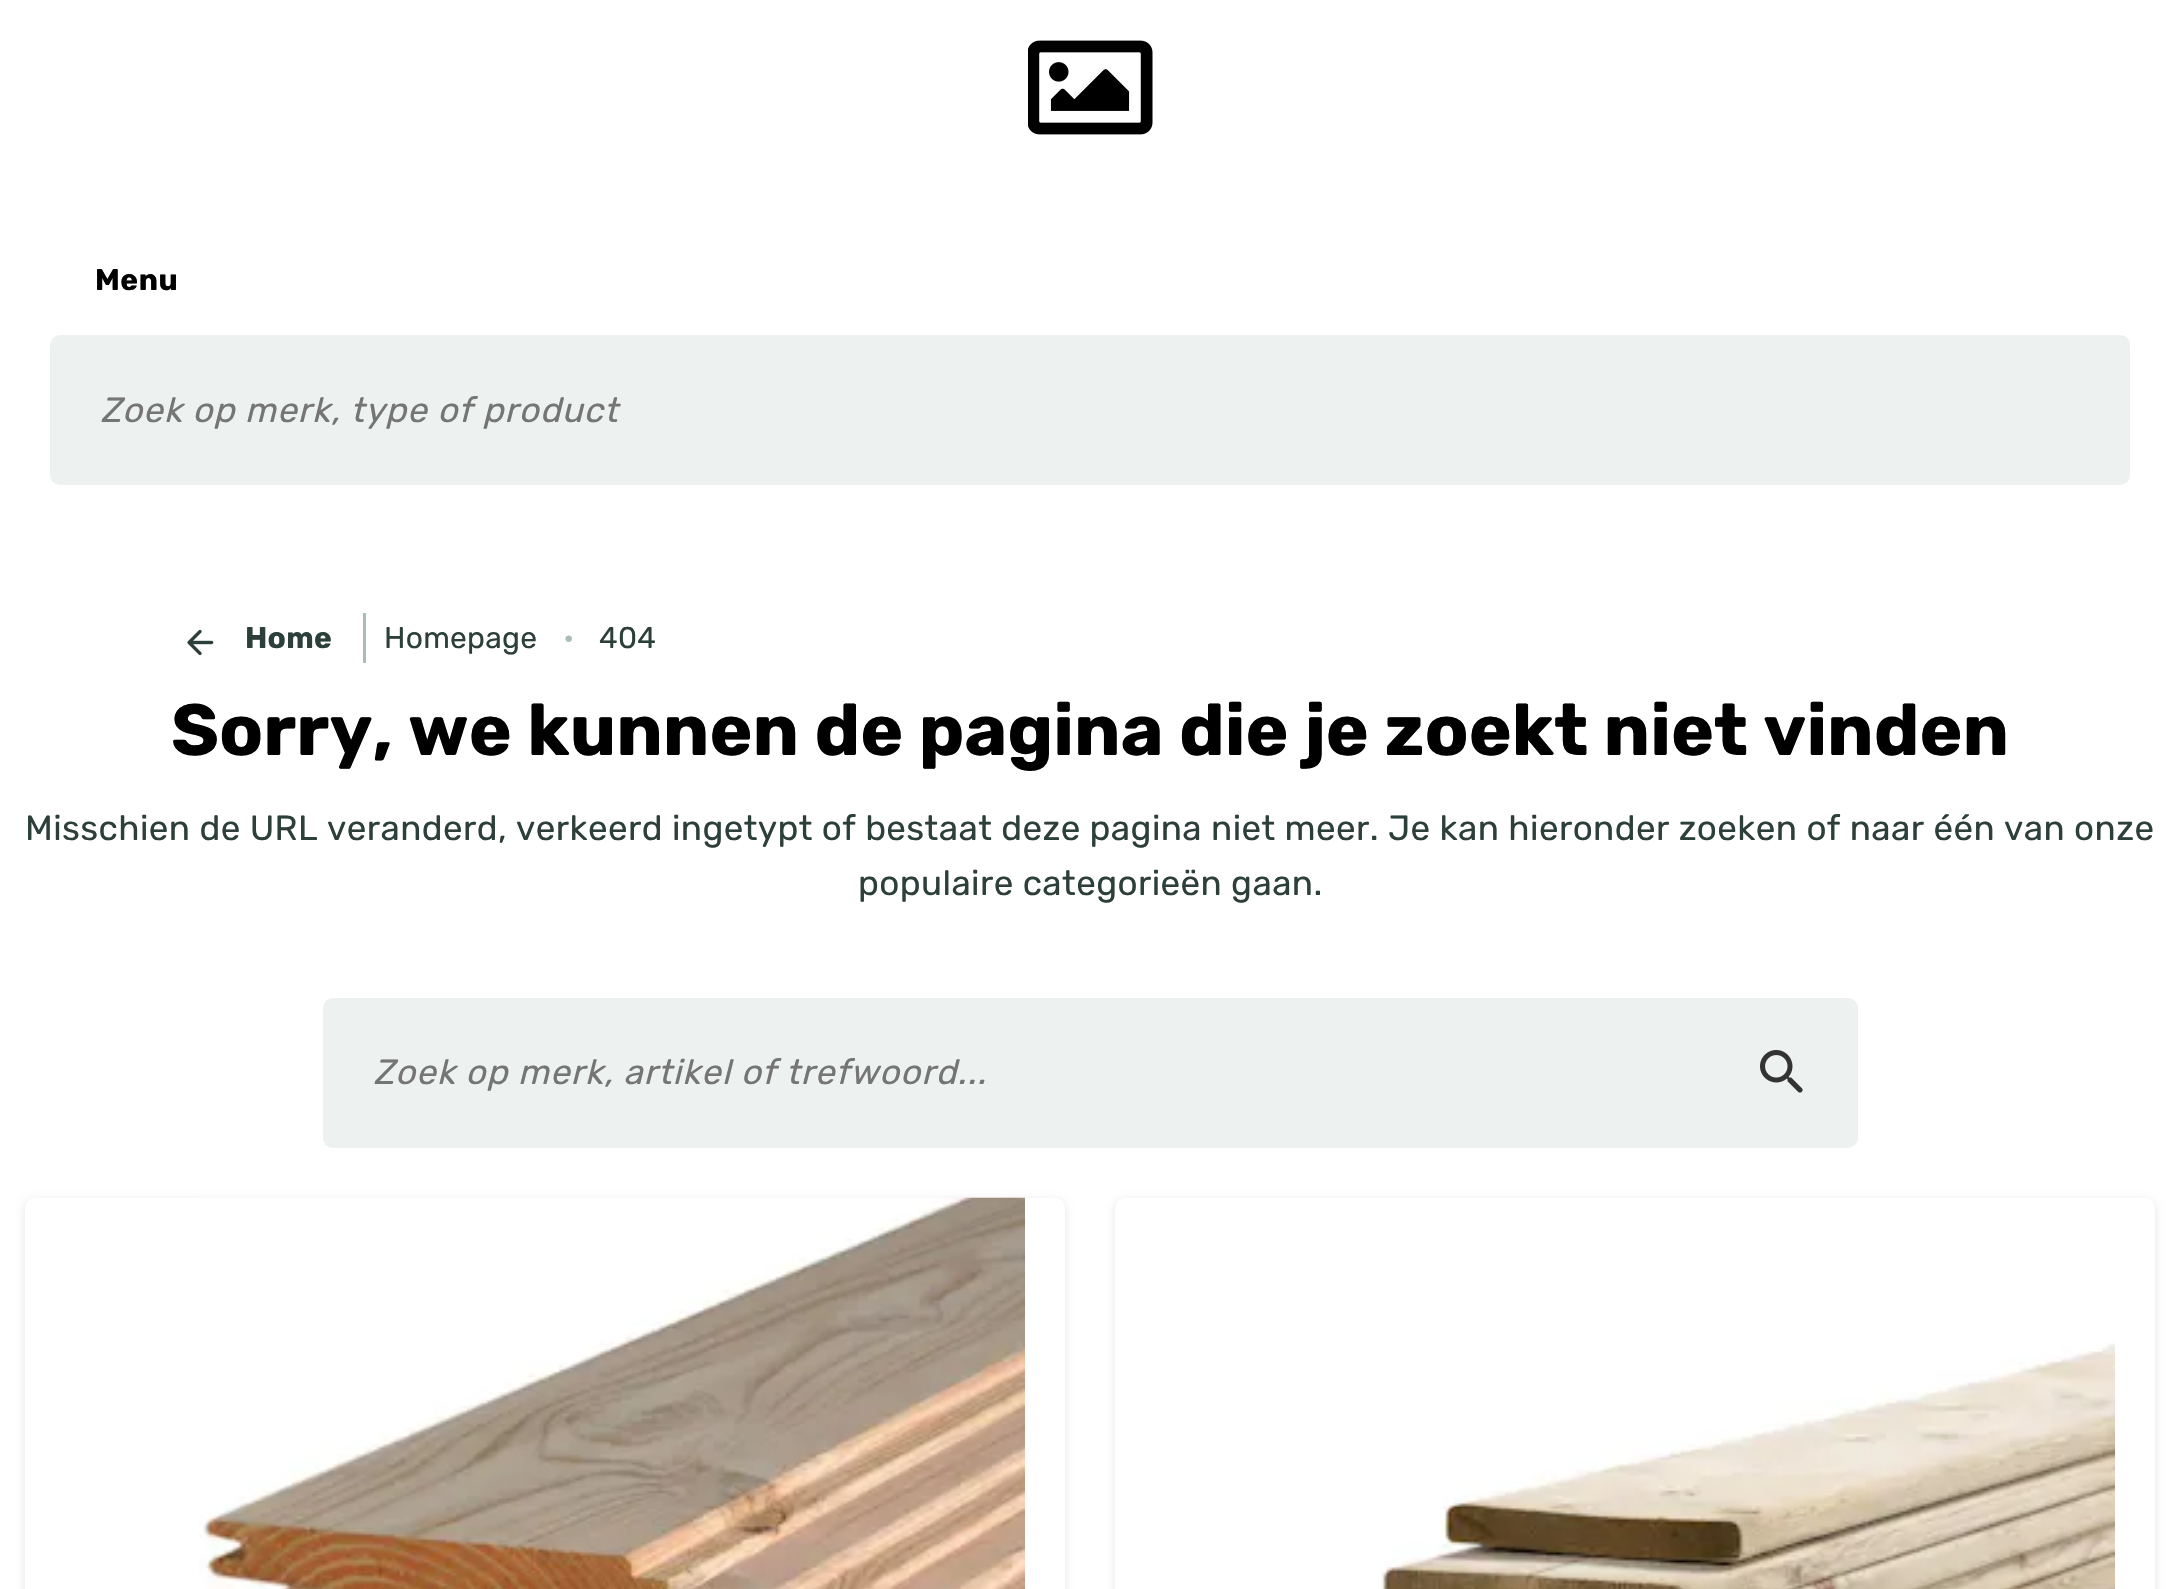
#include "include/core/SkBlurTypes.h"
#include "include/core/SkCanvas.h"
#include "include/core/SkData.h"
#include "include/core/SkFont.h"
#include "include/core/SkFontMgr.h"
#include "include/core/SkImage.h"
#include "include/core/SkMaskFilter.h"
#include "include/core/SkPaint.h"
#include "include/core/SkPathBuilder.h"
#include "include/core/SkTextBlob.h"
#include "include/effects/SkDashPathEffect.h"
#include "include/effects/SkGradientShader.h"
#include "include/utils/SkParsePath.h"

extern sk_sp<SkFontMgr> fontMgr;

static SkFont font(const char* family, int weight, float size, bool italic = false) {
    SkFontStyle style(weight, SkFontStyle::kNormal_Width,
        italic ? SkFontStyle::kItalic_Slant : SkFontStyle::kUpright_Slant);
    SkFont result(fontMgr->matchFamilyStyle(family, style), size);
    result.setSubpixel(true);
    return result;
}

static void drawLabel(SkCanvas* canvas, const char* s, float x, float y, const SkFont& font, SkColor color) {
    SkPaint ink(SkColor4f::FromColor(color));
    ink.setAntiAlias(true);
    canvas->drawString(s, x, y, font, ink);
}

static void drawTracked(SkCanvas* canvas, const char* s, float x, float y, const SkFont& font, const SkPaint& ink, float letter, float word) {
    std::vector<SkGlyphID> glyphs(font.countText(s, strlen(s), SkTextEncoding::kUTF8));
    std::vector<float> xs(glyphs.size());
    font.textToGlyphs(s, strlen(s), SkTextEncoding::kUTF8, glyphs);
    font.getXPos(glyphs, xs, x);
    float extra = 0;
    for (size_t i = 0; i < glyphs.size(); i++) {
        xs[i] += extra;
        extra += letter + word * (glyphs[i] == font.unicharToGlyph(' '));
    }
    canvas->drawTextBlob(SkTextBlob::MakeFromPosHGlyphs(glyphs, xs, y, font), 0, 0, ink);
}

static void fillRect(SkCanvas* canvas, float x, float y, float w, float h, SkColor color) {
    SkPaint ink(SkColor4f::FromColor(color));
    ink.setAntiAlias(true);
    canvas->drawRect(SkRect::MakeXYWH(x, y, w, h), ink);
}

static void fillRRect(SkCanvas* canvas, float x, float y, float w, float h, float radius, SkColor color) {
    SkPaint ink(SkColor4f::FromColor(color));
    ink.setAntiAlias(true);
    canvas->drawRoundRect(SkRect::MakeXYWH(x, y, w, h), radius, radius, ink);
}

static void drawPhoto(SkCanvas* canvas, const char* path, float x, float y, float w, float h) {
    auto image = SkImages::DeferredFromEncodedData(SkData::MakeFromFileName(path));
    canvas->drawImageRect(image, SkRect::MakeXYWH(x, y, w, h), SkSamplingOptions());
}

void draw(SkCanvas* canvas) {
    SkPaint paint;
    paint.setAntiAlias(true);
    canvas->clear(0xFFFFFFFF);
    drawPhoto(canvas, "assets/img1.png", 1028, 40, 125, 95);
    SkFont font1 = font("Rubik", 700, 30);
    paint.setColor(0xFF000000);
    drawTracked(canvas, "Menu", 95, 290, font1, paint, 0.5f, 0);
    fillRRect(canvas, 50, 335, 2080, 150, 10, 0xFFEDF2F0);
    SkFont font2 = font("Rubik", 400, 35, true);
    paint.setColor(0xFF757575);
    drawTracked(canvas, "Zoek op merk, type of product", 100, 422, font2, paint, 1, 0);
    drawPhoto(canvas, "assets/img2.png", 187, 629, 27, 27);
    paint.setColor(0xFF2D3F3A);
    drawTracked(canvas, "Home", 245, 648, font1, paint, 0.25f, 0);
    fillRect(canvas, 363, 613, 3, 50, 0xFFA8BDB9);
    SkFont font3 = font("Rubik", 400, 30);
    drawTracked(canvas, "Homepage", 384, 648, font3, paint, 0.25f, 0);
    paint.setColor(0xFFA8BDB9);
    drawTracked(canvas, "•", 563, 648, font3, paint, 0.25f, 0);
    paint.setColor(0xFF2D3F3A);
    drawTracked(canvas, "404", 599, 648, font3, paint, 0.25f, 0);
    SkFont font4 = font("Rubik", 700, 72.5f);
    drawLabel(canvas, "Sorry, we kunnen de pagina die je zoekt niet vinden", 171, 755, font4, 0xFF000000);
    SkFont font5 = font("Rubik", 400, 35);
    drawTracked(canvas, "Misschien de URL veranderd, verkeerd ingetypt of bestaat deze pagina niet meer. Je kan hieronder zoeken of naar één van onze", 25, 840, font5, paint, 0.4f, 0);
    drawTracked(canvas, "populaire categorieën gaan.", 858, 895, font5, paint, 0.4f, 0);
    fillRRect(canvas, 323, 998, 1535, 150, 10, 0xFFEDF2F0);
    paint.setColor(0xFF757575);
    drawTracked(canvas, "Zoek op merk, artikel of trefwoord...", 373, 1084, font2, paint, 1, 0);
    drawPhoto(canvas, "assets/img3.png", 1760, 1050, 43, 43);
    paint.setColor(0x1A000000);
    paint.setMaskFilter(SkMaskFilter::MakeBlur(kNormal_SkBlurStyle, 4));
    canvas->drawRoundRect(SkRect::MakeXYWH(25, 1200, 1040, 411), 10, 10, paint);
    paint.setMaskFilter(nullptr);
    fillRRect(canvas, 25, 1198, 1040, 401, 10, 0xFFFFFFFF);
    drawPhoto(canvas, "assets/img4.png", 199, 1197, 826, 392);
    paint.setMaskFilter(SkMaskFilter::MakeBlur(kNormal_SkBlurStyle, 4));
    canvas->drawRoundRect(SkRect::MakeXYWH(1115, 1200, 1040, 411), 10, 10, paint);
    paint.setMaskFilter(nullptr);
    fillRRect(canvas, 1115, 1198, 1040, 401, 10, 0xFFFFFFFF);
    drawPhoto(canvas, "assets/img5.png", 1380, 1343, 735, 246);
}
